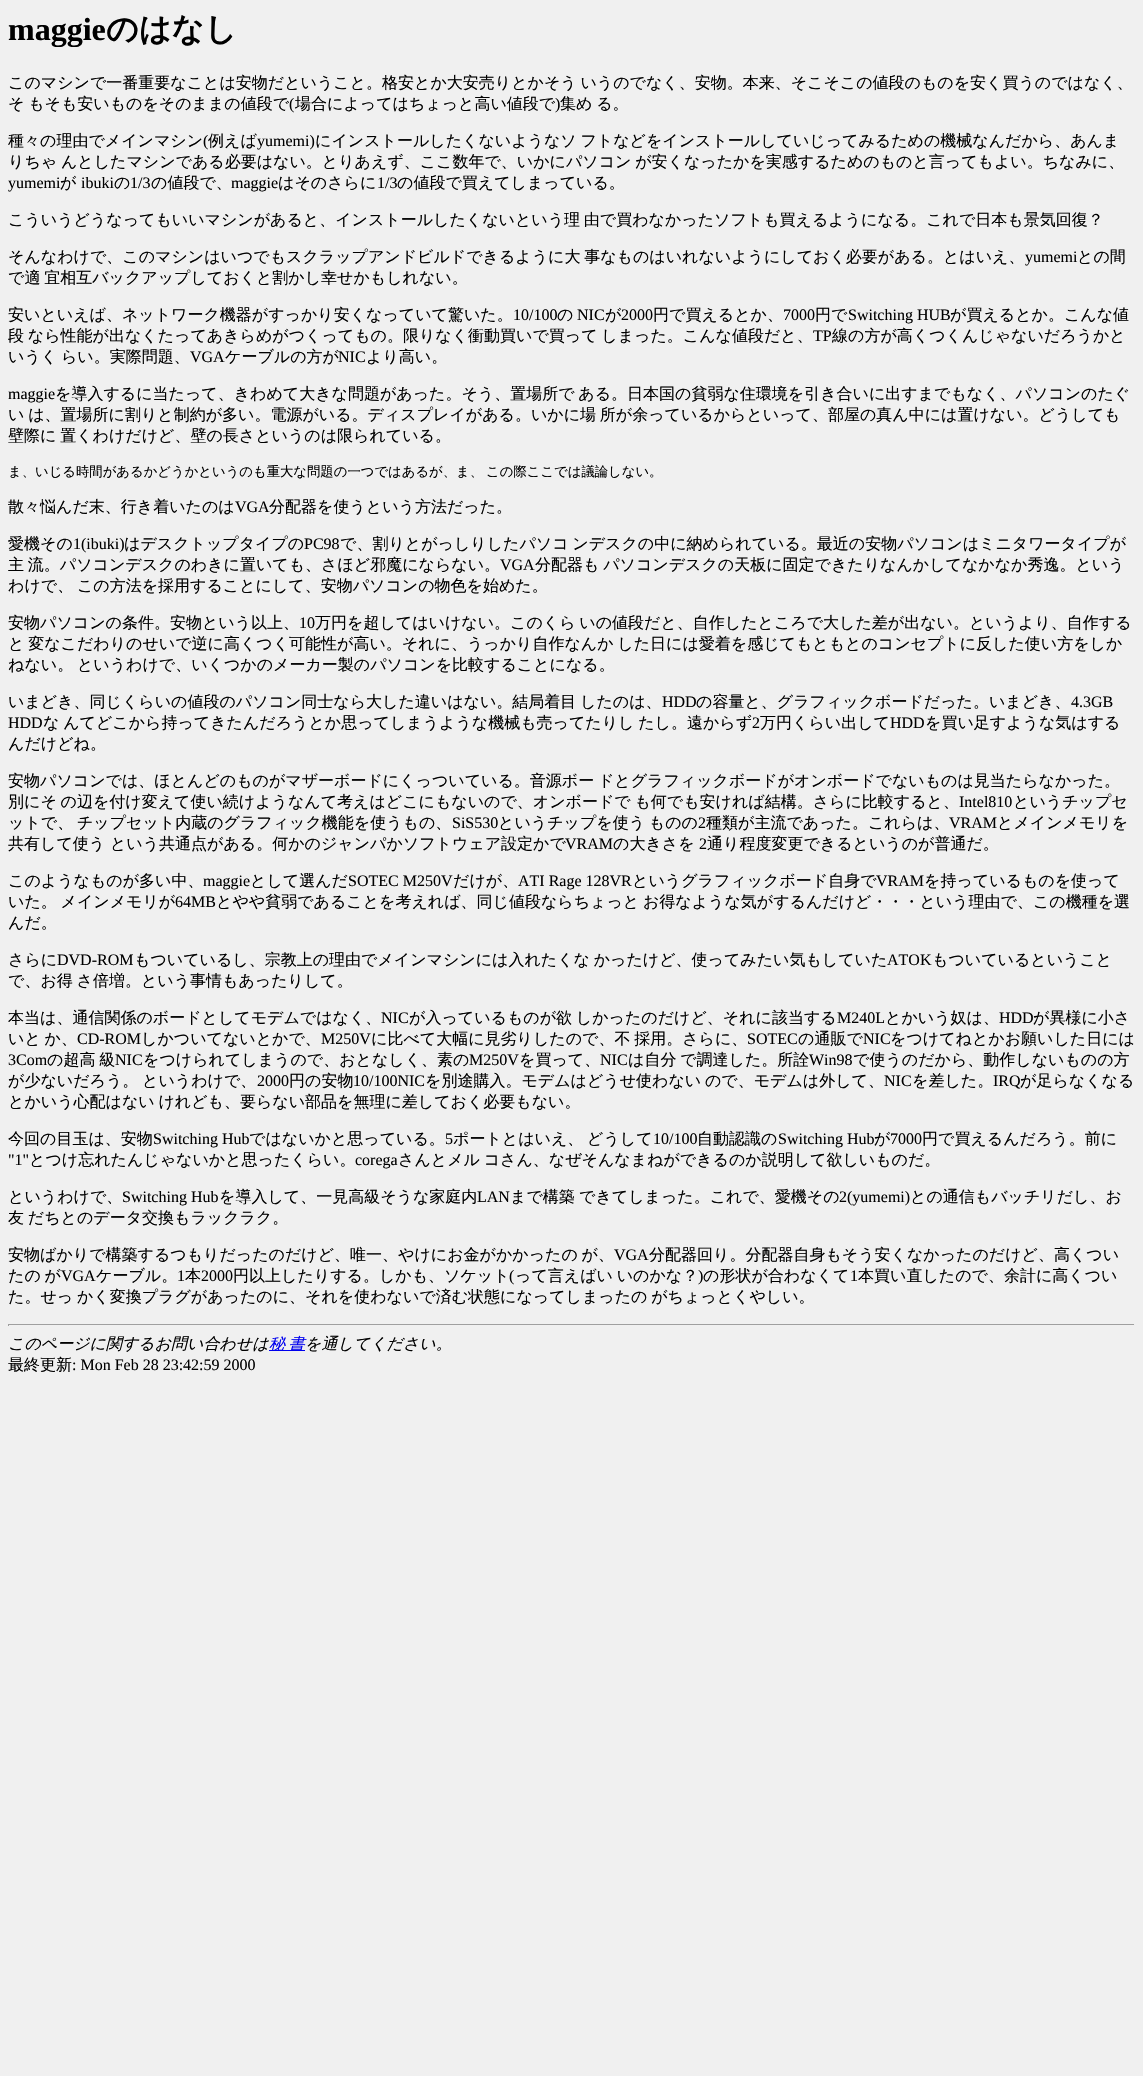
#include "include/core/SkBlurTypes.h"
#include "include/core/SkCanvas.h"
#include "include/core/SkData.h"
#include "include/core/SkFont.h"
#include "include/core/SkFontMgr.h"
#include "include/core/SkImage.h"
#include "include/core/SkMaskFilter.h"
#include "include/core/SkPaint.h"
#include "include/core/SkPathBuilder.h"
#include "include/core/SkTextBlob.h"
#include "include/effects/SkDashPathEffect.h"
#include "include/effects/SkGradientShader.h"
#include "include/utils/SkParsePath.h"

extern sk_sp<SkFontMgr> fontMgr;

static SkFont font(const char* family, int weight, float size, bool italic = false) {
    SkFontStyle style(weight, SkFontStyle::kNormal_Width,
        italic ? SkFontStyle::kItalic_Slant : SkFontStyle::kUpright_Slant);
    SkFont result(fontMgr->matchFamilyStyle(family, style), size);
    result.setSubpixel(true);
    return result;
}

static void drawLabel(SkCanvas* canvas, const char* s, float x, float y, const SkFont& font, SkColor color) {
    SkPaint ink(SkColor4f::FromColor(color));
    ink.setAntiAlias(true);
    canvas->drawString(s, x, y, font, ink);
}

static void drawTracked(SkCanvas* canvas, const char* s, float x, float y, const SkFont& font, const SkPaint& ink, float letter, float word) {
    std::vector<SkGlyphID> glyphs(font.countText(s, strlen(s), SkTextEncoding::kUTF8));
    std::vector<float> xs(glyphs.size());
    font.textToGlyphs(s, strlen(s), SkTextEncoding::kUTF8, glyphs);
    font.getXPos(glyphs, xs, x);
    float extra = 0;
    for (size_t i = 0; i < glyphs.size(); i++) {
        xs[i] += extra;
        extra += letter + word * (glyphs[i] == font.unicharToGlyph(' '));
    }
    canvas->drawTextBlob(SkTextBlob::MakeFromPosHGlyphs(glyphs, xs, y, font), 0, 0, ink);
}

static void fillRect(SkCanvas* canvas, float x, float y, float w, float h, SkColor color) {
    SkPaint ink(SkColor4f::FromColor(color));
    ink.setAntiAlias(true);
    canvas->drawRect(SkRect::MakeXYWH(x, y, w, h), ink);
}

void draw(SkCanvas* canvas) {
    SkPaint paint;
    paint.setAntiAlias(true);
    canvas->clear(0xFFF0F0F0);
    SkFont font1 = font("Liberation Serif", 700, 32);
    drawLabel(canvas, "maggie", 8, 40, font1, 0xFF000000);
    SkFont font2 = font("WenQuanYi Zen Hei", 700, 32);
    drawLabel(canvas, "のはなし", 106, 40, font2, 0xFF000000);
    SkFont font3 = font("WenQuanYi Zen Hei", 500, 16);
    paint.setColor(0xFF000000);
    drawTracked(canvas, "このマシンで一番重要なことは安物だということ。格安とか大安売りとかそう いうのでなく、安物。本来、そこそこの値段のものを安く買うのではなく、", 8, 88, font3, paint, 0, -1);
    drawTracked(canvas, "そ もそも安いものをそのままの値段で", 8, 109, font3, paint, 0, -1);
    SkFont font4 = font("Liberation Serif", 400, 16);
    drawLabel(canvas, "(", 289, 109, font4, 0xFF000000);
    drawLabel(canvas, "場合によってはちょっと高い値段で", 295, 109, font3, 0xFF000000);
    drawLabel(canvas, ")", 555, 109, font4, 0xFF000000);
    drawTracked(canvas, "集め る。", 560, 109, font3, paint, 0, -1);
    drawLabel(canvas, "種々の理由でメインマシン", 8, 146, font3, 0xFF000000);
    drawLabel(canvas, "(", 203, 146, font4, 0xFF000000);
    drawLabel(canvas, "例えば", 208, 146, font3, 0xFF000000);
    drawLabel(canvas, "yumemi)", 257, 146, font4, 0xFF000000);
    drawTracked(canvas, "にインストールしたくないようなソ フトなどをインストールしていじってみるための機械なんだから、あんま", 315, 146, font3, paint, 0, -1);
    drawTracked(canvas, "りちゃ んとしたマシンである必要はない。とりあえず、ここ数年で、いかにパソコン が安くなったかを実感するためのものと言ってもよい。ちなみに、", 8, 167, font3, paint, 0, -1);
    drawLabel(canvas, "yumemi", 8, 188, font4, 0xFF000000);
    drawLabel(canvas, "が", 60, 188, font3, 0xFF000000);
    drawLabel(canvas, "ibuki", 81, 188, font4, 0xFF000000);
    drawLabel(canvas, "の", 114, 188, font3, 0xFF000000);
    drawLabel(canvas, "1/3", 130, 188, font4, 0xFF000000);
    drawLabel(canvas, "の値段で、", 151, 188, font3, 0xFF000000);
    drawLabel(canvas, "maggie", 231, 188, font4, 0xFF000000);
    drawLabel(canvas, "はそのさらに", 278, 188, font3, 0xFF000000);
    drawLabel(canvas, "1/3", 377, 188, font4, 0xFF000000);
    drawLabel(canvas, "の値段で買えてしまっている。", 397, 188, font3, 0xFF000000);
    drawTracked(canvas, "こういうどうなってもいいマシンがあると、インストールしたくないという理 由で買わなかったソフトも買えるようになる。これで日本も景気回復？", 8, 225, font3, paint, 0, -1);
    drawTracked(canvas, "そんなわけで、このマシンはいつでもスクラップアンドビルドできるように大 事なものはいれないようにしておく必要がある。とはいえ、", 8, 262, font3, paint, 0, -1);
    drawLabel(canvas, "yumemi", 1025, 262, font4, 0xFF000000);
    drawLabel(canvas, "との間", 1077, 262, font3, 0xFF000000);
    drawTracked(canvas, "で適 宜相互バックアップしておくと割かし幸せかもしれない。", 8, 283, font3, paint, 0, -1);
    drawLabel(canvas, "安いといえば、ネットワーク機器がすっかり安くなっていて驚いた。", 8, 320, font3, 0xFF000000);
    drawLabel(canvas, "10/100", 513, 320, font4, 0xFF000000);
    drawLabel(canvas, "の", 557, 320, font3, 0xFF000000);
    drawLabel(canvas, "NIC", 577, 320, font4, 0xFF000000);
    drawLabel(canvas, "が", 605, 320, font3, 0xFF000000);
    drawLabel(canvas, "2000", 621, 320, font4, 0xFF000000);
    drawLabel(canvas, "円で買えるとか、", 653, 320, font3, 0xFF000000);
    drawLabel(canvas, "7000", 783, 320, font4, 0xFF000000);
    drawLabel(canvas, "円で", 815, 320, font3, 0xFF000000);
    drawLabel(canvas, "Switching HUB", 848, 320, font4, 0xFF000000);
    drawLabel(canvas, "が買えるとか。こんな値", 950, 320, font3, 0xFF000000);
    drawTracked(canvas, "段 なら性能が出なくたってあきらめがつくってもの。限りなく衝動買いで買って しまった。こんな値段だと、", 8, 341, font3, paint, 0, -1);
    drawLabel(canvas, "TP", 813, 341, font4, 0xFF000000);
    drawLabel(canvas, "線の方が高くつくんじゃないだろうかと", 832, 341, font3, 0xFF000000);
    drawTracked(canvas, "いうく らい。実際問題、", 8, 362, font3, paint, 0, -1);
    drawLabel(canvas, "VGA", 190, 362, font4, 0xFF000000);
    drawLabel(canvas, "ケーブルの方が", 225, 362, font3, 0xFF000000);
    drawLabel(canvas, "NIC", 338, 362, font4, 0xFF000000);
    drawLabel(canvas, "より高い。", 366, 362, font3, 0xFF000000);
    drawLabel(canvas, "maggie", 8, 399, font4, 0xFF000000);
    drawTracked(canvas, "を導入するに当たって、きわめて大きな問題があった。そう、置場所で ある。日本国の貧弱な住環境を引き合いに出すまでもなく、パソコンのたぐ", 55, 399, font3, paint, 0, -1);
    drawTracked(canvas, "い は、置場所に割りと制約が多い。電源がいる。ディスプレイがある。いかに場 所が余っているからといって、部屋の真ん中には置けない。どうしても", 8, 420, font3, paint, 0, -1);
    drawTracked(canvas, "壁際に 置くわけだけど、壁の長さというのは限られている。", 8, 441, font3, paint, 0, -1);
    SkFont font5 = font("WenQuanYi Zen Hei", 500, 13.35f);
    drawTracked(canvas, "ま、いじる時間があるかどうかというのも重大な問題の一つではあるが、ま、 この際ここでは議論しない。", 8, 476, font5, paint, 0, -1);
    drawLabel(canvas, "散々悩んだ末、行き着いたのは", 8, 512, font3, 0xFF000000);
    drawLabel(canvas, "VGA", 235, 512, font4, 0xFF000000);
    drawLabel(canvas, "分配器を使うという方法だった。", 269, 512, font3, 0xFF000000);
    drawLabel(canvas, "愛機その", 8, 549, font3, 0xFF000000);
    drawLabel(canvas, "1(ibuki)", 73, 549, font4, 0xFF000000);
    drawLabel(canvas, "はデスクトップタイプの", 124, 549, font3, 0xFF000000);
    drawLabel(canvas, "PC98", 304, 549, font4, 0xFF000000);
    drawTracked(canvas, "で、割りとがっしりしたパソコ ンデスクの中に納められている。最近の安物パソコンはミニタワータイプが", 340, 549, font3, paint, 0, -1);
    drawTracked(canvas, "主 流。パソコンデスクのわきに置いても、さほど邪魔にならない。", 8, 570, font3, paint, 0, -1);
    drawLabel(canvas, "VGA", 500, 570, font4, 0xFF000000);
    drawTracked(canvas, "分配器も パソコンデスクの天板に固定できたりなんかしてなかなか秀逸。という", 535, 570, font3, paint, 0, -1);
    drawTracked(canvas, "わけで、 この方法を採用することにして、安物パソコンの物色を始めた。", 8, 591, font3, paint, 0, -1);
    drawLabel(canvas, "安物パソコンの条件。安物という以上、", 8, 628, font3, 0xFF000000);
    drawLabel(canvas, "10", 299, 628, font4, 0xFF000000);
    drawTracked(canvas, "万円を超してはいけない。このくら いの値段だと、自作したところで大した差が出ない。というより、自作する", 315, 628, font3, paint, 0, -1);
    drawTracked(canvas, "と 変なこだわりのせいで逆に高くつく可能性が高い。それに、うっかり自作なんか した日には愛着を感じてもともとのコンセプトに反した使い方をしか", 8, 649, font3, paint, 0, -1);
    drawTracked(canvas, "ねない。 というわけで、いくつかのメーカー製のパソコンを比較することになる。", 8, 670, font3, paint, 0, -1);
    drawTracked(canvas, "いまどき、同じくらいの値段のパソコン同士なら大した違いはない。結局着目 したのは、", 8, 707, font3, paint, 0, -1);
    drawLabel(canvas, "HDD", 662, 707, font4, 0xFF000000);
    drawLabel(canvas, "の容量と、グラフィックボードだった。いまどき、", 696, 707, font3, 0xFF000000);
    drawLabel(canvas, "4.3GB", 1071, 707, font4, 0xFF000000);
    drawLabel(canvas, "HDD", 8, 728, font4, 0xFF000000);
    drawTracked(canvas, "な んてどこから持ってきたんだろうとか思ってしまうような機械も売ってたりし たし。遠からず", 43, 728, font3, paint, 0, -1);
    drawLabel(canvas, "2", 752, 728, font4, 0xFF000000);
    drawLabel(canvas, "万円くらい出して", 760, 728, font3, 0xFF000000);
    drawLabel(canvas, "HDD", 890, 728, font4, 0xFF000000);
    drawLabel(canvas, "を買い足すような気はする", 925, 728, font3, 0xFF000000);
    drawLabel(canvas, "んだけどね。", 8, 749, font3, 0xFF000000);
    drawTracked(canvas, "安物パソコンでは、ほとんどのものがマザーボードにくっついている。音源ボー ドとグラフィックボードがオンボードでないものは見当たらなかった。", 8, 786, font3, paint, 0, -1);
    drawTracked(canvas, "別にそ の辺を付け変えて使い続けようなんて考えはどこにもないので、オンボードで も何でも安ければ結構。さらに比較すると、", 8, 807, font3, paint, 0, -1);
    drawLabel(canvas, "Intel810", 959, 807, font4, 0xFF000000);
    drawLabel(canvas, "というチップセ", 1013, 807, font3, 0xFF000000);
    drawTracked(canvas, "ットで、 チップセット内蔵のグラフィック機能を使うもの、", 8, 828, font3, paint, 0, -1);
    drawLabel(canvas, "SiS530", 452, 828, font4, 0xFF000000);
    drawTracked(canvas, "というチップを使う ものの", 498, 828, font3, paint, 0, -1);
    drawLabel(canvas, "2", 698, 828, font4, 0xFF000000);
    drawLabel(canvas, "種類が主流であった。これらは、", 706, 828, font3, 0xFF000000);
    drawLabel(canvas, "VRAM", 949, 828, font4, 0xFF000000);
    drawLabel(canvas, "とメインメモリを", 997, 828, font3, 0xFF000000);
    drawLabel(canvas, "共有して使う という共通点がある。何かのジャンパかソフトウェア設定かで", 8, 849, font3, 0xFF000000);
    drawLabel(canvas, "VRAM", 565, 849, font4, 0xFF000000);
    drawLabel(canvas, "の大きさを", 613, 849, font3, 0xFF000000);
    drawLabel(canvas, "2", 699, 849, font4, 0xFF000000);
    drawLabel(canvas, "通り程度変更できるというのが普通だ。", 707, 849, font3, 0xFF000000);
    drawLabel(canvas, "このようなものが多い中、", 8, 886, font3, 0xFF000000);
    drawLabel(canvas, "maggie", 203, 886, font4, 0xFF000000);
    drawLabel(canvas, "として選んだ", 250, 886, font3, 0xFF000000);
    drawLabel(canvas, "SOTEC M250V", 348, 886, font4, 0xFF000000);
    drawLabel(canvas, "だけが、", 453, 886, font3, 0xFF000000);
    drawLabel(canvas, "ATI Rage 128VR", 518, 886, font4, 0xFF000000);
    drawLabel(canvas, "というグラフィックボード自身で", 632, 886, font3, 0xFF000000);
    drawLabel(canvas, "VRAM", 876, 886, font4, 0xFF000000);
    drawLabel(canvas, "を持っているものを使って", 924, 886, font3, 0xFF000000);
    drawTracked(canvas, "いた。 メインメモリが", 8, 907, font3, paint, 0, -1);
    drawLabel(canvas, "64MB", 175, 907, font4, 0xFF000000);
    drawTracked(canvas, "とやや貧弱であることを考えれば、同じ値段ならちょっと お得なような気がするんだけど・・・という理由で、この機種を選", 216, 907, font3, paint, 0, -1);
    drawLabel(canvas, "んだ。", 8, 928, font3, 0xFF000000);
    drawLabel(canvas, "さらに", 8, 965, font3, 0xFF000000);
    drawLabel(canvas, "DVD-ROM", 57, 965, font4, 0xFF000000);
    drawTracked(canvas, "もついているし、宗教上の理由でメインマシンには入れたくな かったけど、使ってみたい気もしていた", 134, 965, font3, paint, 0, -1);
    drawLabel(canvas, "ATOK", 887, 965, font4, 0xFF000000);
    drawLabel(canvas, "もついているということ", 932, 965, font3, 0xFF000000);
    drawTracked(canvas, "で、お得 さ倍増。という事情もあったりして。", 8, 986, font3, paint, 0, -1);
    drawLabel(canvas, "本当は、通信関係のボードとしてモデムではなく、", 8, 1023, font3, 0xFF000000);
    drawLabel(canvas, "NIC", 381, 1023, font4, 0xFF000000);
    drawTracked(canvas, "が入っているものが欲 しかったのだけど、それに該当する", 409, 1023, font3, paint, 0, -1);
    drawLabel(canvas, "M240L", 837, 1023, font4, 0xFF000000);
    drawLabel(canvas, "とかいう奴は、", 885, 1023, font3, 0xFF000000);
    drawLabel(canvas, "HDD", 999, 1023, font4, 0xFF000000);
    drawLabel(canvas, "が異様に小さ", 1033, 1023, font3, 0xFF000000);
    drawTracked(canvas, "いと か、", 8, 1044, font3, paint, 0, -1);
    drawLabel(canvas, "CD-ROM", 77, 1044, font4, 0xFF000000);
    drawLabel(canvas, "しかついてないとかで、", 141, 1044, font3, 0xFF000000);
    drawLabel(canvas, "M250V", 321, 1044, font4, 0xFF000000);
    drawTracked(canvas, "に比べて大幅に見劣りしたので、不 採用。さらに、", 371, 1044, font3, paint, 0, -1);
    drawLabel(canvas, "SOTEC", 747, 1044, font4, 0xFF000000);
    drawLabel(canvas, "の通販で", 798, 1044, font3, 0xFF000000);
    drawLabel(canvas, "NIC", 863, 1044, font4, 0xFF000000);
    drawLabel(canvas, "をつけてねとかお願いした日には", 890, 1044, font3, 0xFF000000);
    drawLabel(canvas, "3Com", 8, 1065, font4, 0xFF000000);
    drawTracked(canvas, "の超高 級", 47, 1065, font3, paint, 0, -1);
    drawLabel(canvas, "NIC", 115, 1065, font4, 0xFF000000);
    drawLabel(canvas, "をつけられてしまうので、おとなしく、素の", 143, 1065, font3, 0xFF000000);
    drawLabel(canvas, "M250V", 469, 1065, font4, 0xFF000000);
    drawLabel(canvas, "を買って、", 519, 1065, font3, 0xFF000000);
    drawLabel(canvas, "NIC", 600, 1065, font4, 0xFF000000);
    drawTracked(canvas, "は自分 で調達した。所詮", 628, 1065, font3, paint, 0, -1);
    drawLabel(canvas, "Win98", 809, 1065, font4, 0xFF000000);
    drawLabel(canvas, "で使うのだから、動作しないものの方", 853, 1065, font3, 0xFF000000);
    drawTracked(canvas, "が少ないだろう。 というわけで、", 8, 1086, font3, paint, 0, -1);
    drawLabel(canvas, "2000", 257, 1086, font4, 0xFF000000);
    drawLabel(canvas, "円の安物", 289, 1086, font3, 0xFF000000);
    drawLabel(canvas, "10/100NIC", 353, 1086, font4, 0xFF000000);
    drawTracked(canvas, "を別途購入。モデムはどうせ使わない ので、モデムは外して、", 425, 1086, font3, paint, 0, -1);
    drawLabel(canvas, "NIC", 884, 1086, font4, 0xFF000000);
    drawLabel(canvas, "を差した。", 912, 1086, font3, 0xFF000000);
    drawLabel(canvas, "IRQ", 993, 1086, font4, 0xFF000000);
    drawLabel(canvas, "が足らなくなる", 1020, 1086, font3, 0xFF000000);
    drawTracked(canvas, "とかいう心配はない けれども、要らない部品を無理に差しておく必要もない。", 8, 1107, font3, paint, 0, -1);
    drawLabel(canvas, "今回の目玉は、安物", 8, 1144, font3, 0xFF000000);
    drawLabel(canvas, "Switching Hub", 153, 1144, font4, 0xFF000000);
    drawLabel(canvas, "ではないかと思っている。", 249, 1144, font3, 0xFF000000);
    drawLabel(canvas, "5", 445, 1144, font4, 0xFF000000);
    drawLabel(canvas, "ポートとはいえ、", 453, 1144, font3, 0xFF000000);
    drawLabel(canvas, "どうして", 587, 1144, font3, 0xFF000000);
    drawLabel(canvas, "10/100", 653, 1144, font4, 0xFF000000);
    drawLabel(canvas, "自動認識の", 697, 1144, font3, 0xFF000000);
    drawLabel(canvas, "Switching Hub", 778, 1144, font4, 0xFF000000);
    drawLabel(canvas, "が", 874, 1144, font3, 0xFF000000);
    drawLabel(canvas, "7000", 890, 1144, font4, 0xFF000000);
    drawLabel(canvas, "円で買えるんだろう。前に", 922, 1144, font3, 0xFF000000);
    drawLabel(canvas, "\"1\"", 8, 1165, font4, 0xFF000000);
    drawLabel(canvas, "とつけ忘れたんじゃないかと思ったくらい。", 29, 1165, font3, 0xFF000000);
    drawLabel(canvas, "corega", 355, 1165, font4, 0xFF000000);
    drawTracked(canvas, "さんとメル コさん、なぜそんなまねができるのか説明して欲しいものだ。", 398, 1165, font3, paint, 0, -1);
    drawLabel(canvas, "というわけで、", 8, 1202, font3, 0xFF000000);
    drawLabel(canvas, "Switching Hub", 122, 1202, font4, 0xFF000000);
    drawLabel(canvas, "を導入して、一見高級そうな家庭内", 219, 1202, font3, 0xFF000000);
    drawLabel(canvas, "LAN", 477, 1202, font4, 0xFF000000);
    drawLabel(canvas, "まで構築", 510, 1202, font3, 0xFF000000);
    drawLabel(canvas, "できてしまった。これで、愛機その", 579, 1202, font3, 0xFF000000);
    drawLabel(canvas, "2(yumemi)", 839, 1202, font4, 0xFF000000);
    drawLabel(canvas, "との通信もバッチリだし、お", 910, 1202, font3, 0xFF000000);
    drawTracked(canvas, "友 だちとのデータ交換もラックラク。", 8, 1223, font3, paint, 0, -1);
    drawTracked(canvas, "安物ばかりで構築するつもりだったのだけど、唯一、やけにお金がかかったの が、", 8, 1260, font3, paint, 0, -1);
    drawLabel(canvas, "VGA", 614, 1260, font4, 0xFF000000);
    drawLabel(canvas, "分配器回り。分配器自身もそう安くなかったのだけど、高くつい", 649, 1260, font3, 0xFF000000);
    drawTracked(canvas, "たの が", 8, 1281, font3, paint, 0, -1);
    drawLabel(canvas, "VGA", 61, 1281, font4, 0xFF000000);
    drawLabel(canvas, "ケーブル。", 96, 1281, font3, 0xFF000000);
    drawLabel(canvas, "1", 177, 1281, font4, 0xFF000000);
    drawLabel(canvas, "本", 185, 1281, font3, 0xFF000000);
    drawLabel(canvas, "2000", 201, 1281, font4, 0xFF000000);
    drawLabel(canvas, "円以上したりする。しかも、ソケット", 233, 1281, font3, 0xFF000000);
    drawLabel(canvas, "(", 509, 1281, font4, 0xFF000000);
    drawTracked(canvas, "って言えばい いのかな？", 515, 1281, font3, paint, 0, -1);
    drawLabel(canvas, ")", 698, 1281, font4, 0xFF000000);
    drawLabel(canvas, "の形状が合わなくて", 703, 1281, font3, 0xFF000000);
    drawLabel(canvas, "1", 850, 1281, font4, 0xFF000000);
    drawLabel(canvas, "本買い直したので、余計に高くつい", 858, 1281, font3, 0xFF000000);
    drawTracked(canvas, "た。せっ かく変換プラグがあったのに、それを使わないで済む状態になってしまったの がちょっとくやしい。", 8, 1302, font3, paint, 0, -1);
    fillRect(canvas, 8, 1324, 1127, 1, 0xFF9F9F9F);
    fillRect(canvas, 1134, 1324, 1, 2, 0xFFEEEEEE);
    fillRect(canvas, 8, 1324, 1, 2, 0xFF9F9F9F);
    SkFont font6 = font("WenQuanYi Zen Hei", 500, 16, true);
    drawLabel(canvas, "このページに関するお問い合わせは", 8, 1349, font6, 0xFF000000);
    fillRect(canvas, 269, 1350, 36, 1, 0xFF0000EE);
    paint.setColor(0xFF0000EE);
    drawTracked(canvas, "秘 書", 269, 1349, font6, paint, 0, -1);
    drawLabel(canvas, "を通してください。", 305, 1349, font6, 0xFF000000);
    drawLabel(canvas, "最終更新", 8, 1370, font3, 0xFF000000);
    drawLabel(canvas, ": Mon Feb 28 23:42:59 2000", 72, 1370, font4, 0xFF000000);
}
